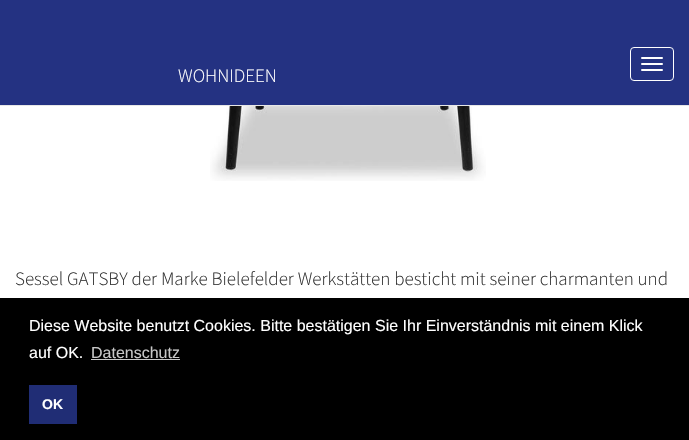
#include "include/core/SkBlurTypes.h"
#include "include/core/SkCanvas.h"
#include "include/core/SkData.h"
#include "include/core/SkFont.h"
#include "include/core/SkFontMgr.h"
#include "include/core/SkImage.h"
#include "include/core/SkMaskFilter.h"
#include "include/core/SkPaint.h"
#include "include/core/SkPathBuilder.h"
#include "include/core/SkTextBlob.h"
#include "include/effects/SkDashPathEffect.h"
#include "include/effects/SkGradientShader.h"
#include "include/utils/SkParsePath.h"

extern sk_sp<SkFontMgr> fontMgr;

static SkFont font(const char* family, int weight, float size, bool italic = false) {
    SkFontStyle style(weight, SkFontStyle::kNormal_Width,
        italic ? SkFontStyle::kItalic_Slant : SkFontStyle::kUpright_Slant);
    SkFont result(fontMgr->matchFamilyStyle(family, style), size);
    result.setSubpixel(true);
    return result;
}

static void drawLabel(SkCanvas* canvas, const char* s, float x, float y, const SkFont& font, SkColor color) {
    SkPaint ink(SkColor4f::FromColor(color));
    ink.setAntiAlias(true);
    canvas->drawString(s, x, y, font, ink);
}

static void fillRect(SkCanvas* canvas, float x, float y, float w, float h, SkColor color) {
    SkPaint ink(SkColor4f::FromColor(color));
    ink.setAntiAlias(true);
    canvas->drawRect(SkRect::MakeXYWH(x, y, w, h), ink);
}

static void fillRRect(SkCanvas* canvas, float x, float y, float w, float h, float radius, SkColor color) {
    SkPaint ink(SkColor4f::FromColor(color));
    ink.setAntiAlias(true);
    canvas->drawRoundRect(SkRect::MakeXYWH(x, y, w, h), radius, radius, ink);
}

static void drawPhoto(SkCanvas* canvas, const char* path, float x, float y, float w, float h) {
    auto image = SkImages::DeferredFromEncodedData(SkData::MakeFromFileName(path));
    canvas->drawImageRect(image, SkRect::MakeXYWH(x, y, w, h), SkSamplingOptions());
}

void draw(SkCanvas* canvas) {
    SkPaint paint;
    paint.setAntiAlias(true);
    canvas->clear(0xFFFFFFFF);
    fillRect(canvas, 0, 0, 689, 105, 0xFF243282);
    fillRect(canvas, 0, 105, 689, 1, 0xFFE7E7E7);
    SkFont font1 = font("Source Sans Pro", 300, 19);
    drawLabel(canvas, "WOHNIDEEN", 178, 82, font1, 0xFFFFFFFF);
    paint.setStroke(true);
    paint.setStrokeWidth(1);
    paint.setColor(0xFFFFFFFF);
    canvas->drawRoundRect(SkRect::MakeXYWH(630.5f, 47.5f, 43, 33), 3.5f, 3.5f, paint);
    fillRRect(canvas, 641, 57, 22, 2, 1, 0xFFFFFFFF);
    fillRRect(canvas, 641, 63, 22, 2, 1, 0xFFFFFFFF);
    fillRRect(canvas, 641, 69, 22, 2, 1, 0xFFFFFFFF);
    drawPhoto(canvas, "assets/img1.png", 210, 106, 276, 75);
    drawLabel(canvas, "Sessel GATSBY der Marke Bielefelder Werkstätten besticht mit seiner charmanten und", 15, 285, font1, 0xFF333333);
    fillRect(canvas, 0, 298, 689, 142, 0xFF000000);
    SkFont font2 = font("Liberation Sans", 400, 16);
    drawLabel(canvas, "Diese Website benutzt Cookies. Bitte bestätigen Sie Ihr Einverständnis mit einem Klick", 29, 331, font2, 0xFFFFFFFF);
    drawLabel(canvas, "auf OK.", 29, 358, font2, 0xFFFFFFFF);
    drawLabel(canvas, "Datenschutz", 91, 358, font2, 0xFFC8C8C8);
    fillRect(canvas, 91, 359, 89, 1, 0xFFC8C8C8);
    fillRect(canvas, 29, 385, 48, 39, 0xFF202D75);
    SkFont font3 = font("Liberation Sans", 700, 14);
    drawLabel(canvas, "OK", 42, 409, font3, 0xFFFFFFFF);
}
